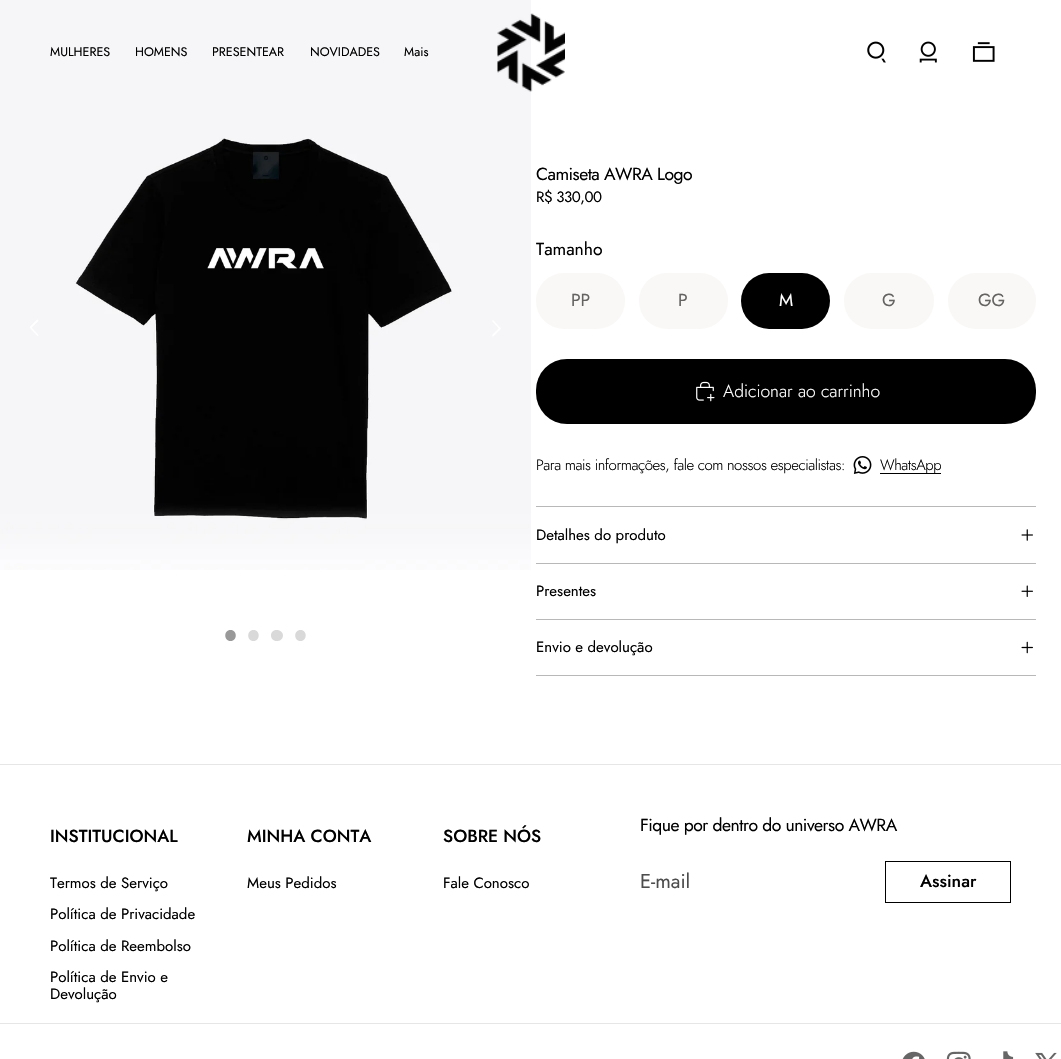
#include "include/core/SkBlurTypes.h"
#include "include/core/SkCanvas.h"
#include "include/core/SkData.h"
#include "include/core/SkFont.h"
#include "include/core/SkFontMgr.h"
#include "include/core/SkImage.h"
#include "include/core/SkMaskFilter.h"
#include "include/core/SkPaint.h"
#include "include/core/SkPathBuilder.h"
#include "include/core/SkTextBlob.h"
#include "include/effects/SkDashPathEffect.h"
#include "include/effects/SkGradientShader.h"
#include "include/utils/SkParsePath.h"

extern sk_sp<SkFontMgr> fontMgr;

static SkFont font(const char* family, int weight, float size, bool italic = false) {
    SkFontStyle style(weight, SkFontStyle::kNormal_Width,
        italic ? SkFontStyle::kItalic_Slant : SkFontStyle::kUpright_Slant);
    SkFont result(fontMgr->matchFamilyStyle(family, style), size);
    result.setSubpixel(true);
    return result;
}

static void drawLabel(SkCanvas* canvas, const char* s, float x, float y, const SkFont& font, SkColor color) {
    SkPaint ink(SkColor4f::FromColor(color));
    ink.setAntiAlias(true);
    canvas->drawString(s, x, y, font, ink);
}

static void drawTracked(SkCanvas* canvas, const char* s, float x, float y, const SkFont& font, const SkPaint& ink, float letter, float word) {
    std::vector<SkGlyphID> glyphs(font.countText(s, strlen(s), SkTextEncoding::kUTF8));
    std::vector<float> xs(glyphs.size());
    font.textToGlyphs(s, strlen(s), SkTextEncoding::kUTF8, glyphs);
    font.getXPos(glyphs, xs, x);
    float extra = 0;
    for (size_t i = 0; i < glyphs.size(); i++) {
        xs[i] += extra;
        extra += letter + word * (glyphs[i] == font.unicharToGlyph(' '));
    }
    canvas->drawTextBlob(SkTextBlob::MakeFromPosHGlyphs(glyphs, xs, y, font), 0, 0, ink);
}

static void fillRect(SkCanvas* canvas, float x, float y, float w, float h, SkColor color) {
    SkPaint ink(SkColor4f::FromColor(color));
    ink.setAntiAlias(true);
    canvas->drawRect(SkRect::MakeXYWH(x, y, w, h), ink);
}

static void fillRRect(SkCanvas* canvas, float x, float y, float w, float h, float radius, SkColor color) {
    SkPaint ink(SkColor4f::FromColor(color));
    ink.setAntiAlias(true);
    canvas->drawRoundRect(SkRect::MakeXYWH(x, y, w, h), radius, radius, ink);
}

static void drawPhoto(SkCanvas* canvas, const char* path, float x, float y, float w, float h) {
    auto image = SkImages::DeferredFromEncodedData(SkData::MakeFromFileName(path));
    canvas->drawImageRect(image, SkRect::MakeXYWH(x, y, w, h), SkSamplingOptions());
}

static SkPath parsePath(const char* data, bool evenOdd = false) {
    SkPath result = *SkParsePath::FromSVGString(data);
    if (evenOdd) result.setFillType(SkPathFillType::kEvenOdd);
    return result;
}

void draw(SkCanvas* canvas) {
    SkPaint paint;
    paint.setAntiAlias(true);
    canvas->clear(0xFFFFFFFF);
    drawPhoto(canvas, "assets/img5.png", 0, 0, 531, 570);
    SkFont font1 = font("Jost", 400, 12.5f);
    drawLabel(canvas, "MULHERES", 50, 56, font1, 0xFF000000);
    drawLabel(canvas, "HOMENS", 135, 56, font1, 0xFF000000);
    drawLabel(canvas, "PRESENTEAR", 212, 56, font1, 0xFF000000);
    drawLabel(canvas, "NOVIDADES", 310, 56, font1, 0xFF000000);
    drawLabel(canvas, "Mais", 404, 56, font1, 0xFF000000);
    drawPhoto(canvas, "assets/img1.png", 497, 13, 68, 79);
    drawPhoto(canvas, "assets/img2.png", 867, 41, 19, 22);
    drawPhoto(canvas, "assets/img3.png", 919, 41, 18, 22);
    drawPhoto(canvas, "assets/img4.png", 972, 42, 23, 20);
    paint.setStroke(true);
    paint.setStrokeWidth(1.8f);
    paint.setStrokeCap(SkPaint::kRound_Cap);
    paint.setStrokeJoin(SkPaint::kRound_Join);
    paint.setColor(0xFFFFFFFF);
    canvas->drawPath(parsePath("M37.5 320.5L30.5 327.5L37.5 335"), paint);
    canvas->drawPath(parsePath("M493 321L500 328.5L493 335.5"), paint);
    paint.setStroke(false);
    paint.setColor(0xFF999999);
    canvas->drawPath(parsePath("M230.5 630C237.5 630 237.5 641 230.5 641C223.5 641 223.5 630 230.5 630Z"), paint);
    paint.setColor(0xFFD9D9D9);
    canvas->drawPath(parsePath("M253.5 630C260.5 630 260.5 641 253.5 641C246.5 641 246.5 630 253.5 630ZM276.5 630C285 630 285 640.5 277.5 641C269 641.5 269 630 276.5 630ZM300.5 630C307.5 630 307.5 641 300.5 641C293.5 641 293.5 630 300.5 630Z"), paint);
    SkFont font2 = font("Jost", 400, 17.5f);
    paint.setColor(0xFF000000);
    drawTracked(canvas, "Camiseta AWRA Logo", 536, 180, font2, paint, -0.5f, 0);
    SkFont font3 = font("Jost", 400, 15);
    drawTracked(canvas, "R$ 330,00", 536, 202, font3, paint, -0.45f, 0);
    drawLabel(canvas, "Tamanho", 536, 255, font2, 0xFF000000);
    fillRRect(canvas, 536, 273, 89, 56, 28, 0xFFF9F8F6);
    drawLabel(canvas, "PP", 571, 306, font2, 0xFF646362);
    fillRRect(canvas, 639, 273, 89, 56, 28, 0xFFF9F8F6);
    drawLabel(canvas, "P", 678, 306, font2, 0xFF646362);
    fillRRect(canvas, 741, 273, 89, 56, 28, 0xFF000000);
    drawLabel(canvas, "M", 779, 306, font2, 0xFFFFFFFF);
    fillRRect(canvas, 844, 273, 90, 56, 28, 0xFFF9F8F6);
    drawLabel(canvas, "G", 882, 306, font2, 0xFF646362);
    fillRRect(canvas, 948, 273, 88, 56, 28, 0xFFF9F8F6);
    drawLabel(canvas, "GG", 978, 306, font2, 0xFF646362);
    fillRRect(canvas, 536, 359, 500, 65, 31, 0xFF000000);
    drawPhoto(canvas, "assets/img6.png", 696, 381, 19, 21);
    SkFont font4 = font("Jost", 300, 17.5f);
    drawLabel(canvas, "Adicionar ao carrinho", 723, 397, font4, 0xFFFFFFFF);
    SkFont font5 = font("Jost", 300, 15);
    drawTracked(canvas, "Para mais informações, fale com nossos especialistas:", 536, 470, font5, paint, -0.45f, 0);
    drawPhoto(canvas, "assets/img7.png", 853, 456, 19, 18);
    fillRect(canvas, 880, 473, 61, 1, 0xFF000000);
    drawTracked(canvas, "WhatsApp", 880, 470, font5, paint, -0.45f, 0);
    fillRect(canvas, 536, 506, 500, 1, 0xFFB8B8B8);
    drawLabel(canvas, "Detalhes do produto", 536, 540, font3, 0xFF000000);
    drawPhoto(canvas, "assets/img8.png", 1021, 529, 12, 12);
    fillRect(canvas, 536, 563, 500, 1, 0xFFB8B8B8);
    drawLabel(canvas, "Presentes", 536, 596, font3, 0xFF000000);
    drawPhoto(canvas, "assets/img9.png", 1021, 585, 12, 12);
    fillRect(canvas, 536, 619, 500, 1, 0xFFB8B8B8);
    fillRect(canvas, 536, 675, 500, 1, 0xFFB8B8B8);
    drawLabel(canvas, "Envio e devolução", 536, 652, font3, 0xFF000000);
    drawPhoto(canvas, "assets/img10.png", 1021, 641, 12, 13);
    fillRect(canvas, 0, 764, 1061, 1, 0xFFE6E6E6);
    SkFont font6 = font("Jost", 500, 17.5f);
    drawLabel(canvas, "INSTITUCIONAL", 50, 842, font6, 0xFF000000);
    drawLabel(canvas, "Termos de Serviço", 50, 888, font3, 0xFF000000);
    drawLabel(canvas, "Política de Privacidade", 50, 919, font3, 0xFF000000);
    drawLabel(canvas, "Política de Reembolso", 50, 951, font3, 0xFF000000);
    drawLabel(canvas, "Política de Envio e", 50, 982, font3, 0xFF000000);
    drawLabel(canvas, "Devolução", 50, 999, font3, 0xFF000000);
    drawLabel(canvas, "MINHA CONTA", 247, 842, font6, 0xFF000000);
    drawLabel(canvas, "Meus Pedidos", 247, 888, font3, 0xFF000000);
    drawLabel(canvas, "SOBRE NÓS", 443, 842, font6, 0xFF000000);
    drawLabel(canvas, "Fale Conosco", 443, 888, font3, 0xFF000000);
    drawTracked(canvas, "Fique por dentro do universo AWRA", 640, 831, font2, paint, -0.5f, 0);
    SkFont font7 = font("Jost", 400, 20);
    drawLabel(canvas, "E-mail", 640, 888, font7, 0xFF4D4D4D);
    paint.setStroke(true);
    paint.setStrokeWidth(1);
    paint.setStrokeCap(SkPaint::kButt_Cap);
    paint.setStrokeJoin(SkPaint::kMiter_Join);
    canvas->drawRect(SkRect::MakeXYWH(885.5f, 861.5f, 125, 41), paint);
    drawLabel(canvas, "Assinar", 920, 887, font6, 0xFF000000);
    fillRect(canvas, 0, 1023, 1061, 1, 0xFFE6E6E6);
    drawPhoto(canvas, "assets/img11.png", 902, 1051, 23, 8);
    drawPhoto(canvas, "assets/img12.png", 946, 1051, 25, 8);
    drawPhoto(canvas, "assets/img13.png", 1003, 1051, 11, 8);
    drawPhoto(canvas, "assets/img14.png", 1035, 1052, 22, 7);
}
